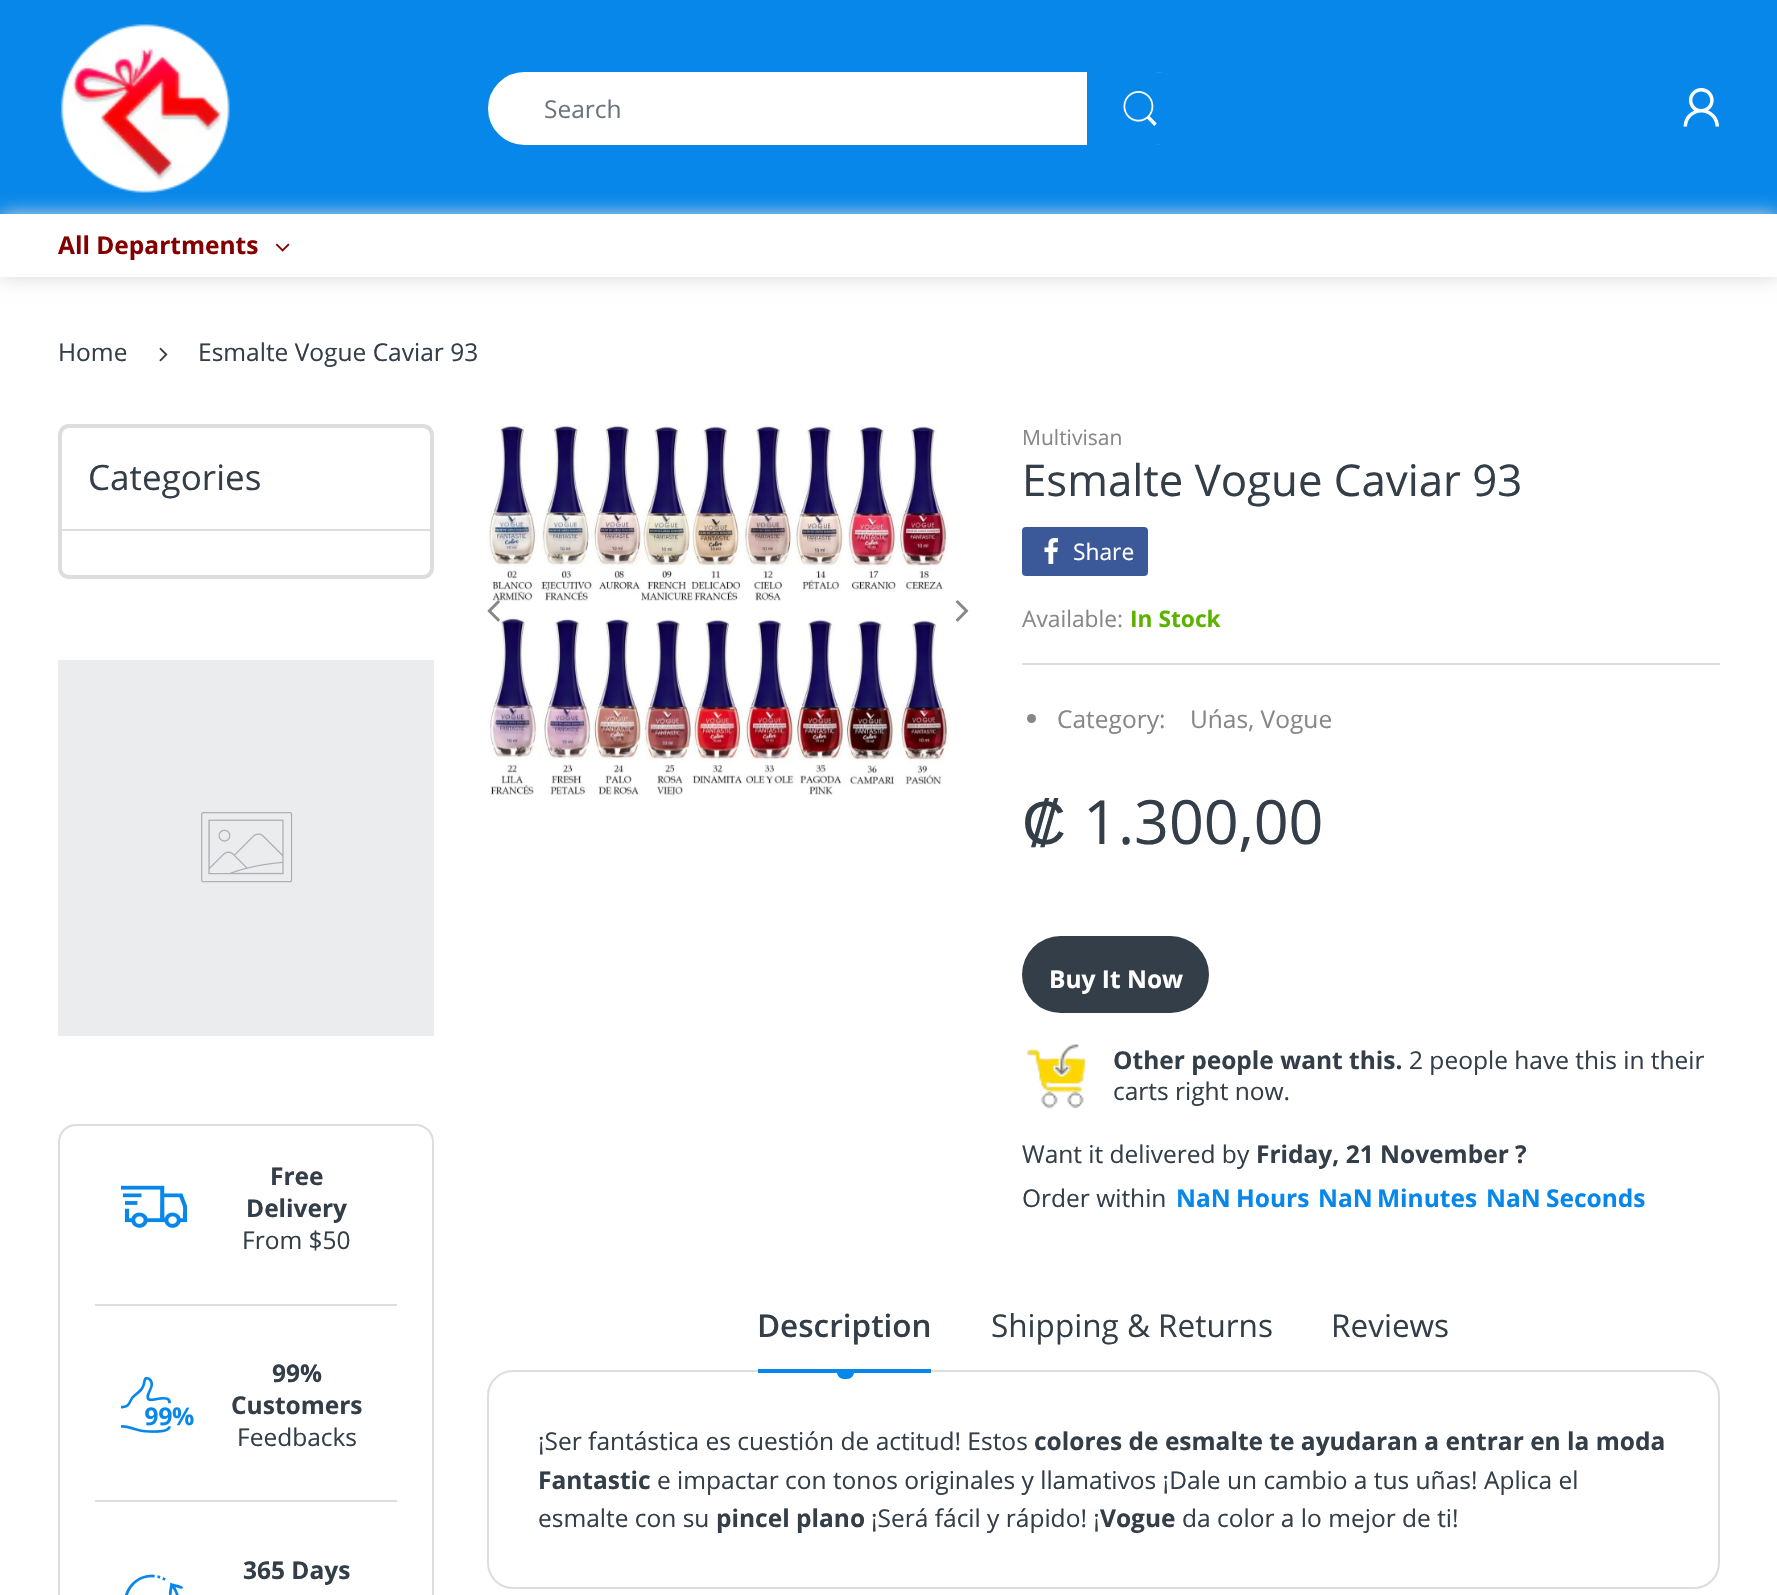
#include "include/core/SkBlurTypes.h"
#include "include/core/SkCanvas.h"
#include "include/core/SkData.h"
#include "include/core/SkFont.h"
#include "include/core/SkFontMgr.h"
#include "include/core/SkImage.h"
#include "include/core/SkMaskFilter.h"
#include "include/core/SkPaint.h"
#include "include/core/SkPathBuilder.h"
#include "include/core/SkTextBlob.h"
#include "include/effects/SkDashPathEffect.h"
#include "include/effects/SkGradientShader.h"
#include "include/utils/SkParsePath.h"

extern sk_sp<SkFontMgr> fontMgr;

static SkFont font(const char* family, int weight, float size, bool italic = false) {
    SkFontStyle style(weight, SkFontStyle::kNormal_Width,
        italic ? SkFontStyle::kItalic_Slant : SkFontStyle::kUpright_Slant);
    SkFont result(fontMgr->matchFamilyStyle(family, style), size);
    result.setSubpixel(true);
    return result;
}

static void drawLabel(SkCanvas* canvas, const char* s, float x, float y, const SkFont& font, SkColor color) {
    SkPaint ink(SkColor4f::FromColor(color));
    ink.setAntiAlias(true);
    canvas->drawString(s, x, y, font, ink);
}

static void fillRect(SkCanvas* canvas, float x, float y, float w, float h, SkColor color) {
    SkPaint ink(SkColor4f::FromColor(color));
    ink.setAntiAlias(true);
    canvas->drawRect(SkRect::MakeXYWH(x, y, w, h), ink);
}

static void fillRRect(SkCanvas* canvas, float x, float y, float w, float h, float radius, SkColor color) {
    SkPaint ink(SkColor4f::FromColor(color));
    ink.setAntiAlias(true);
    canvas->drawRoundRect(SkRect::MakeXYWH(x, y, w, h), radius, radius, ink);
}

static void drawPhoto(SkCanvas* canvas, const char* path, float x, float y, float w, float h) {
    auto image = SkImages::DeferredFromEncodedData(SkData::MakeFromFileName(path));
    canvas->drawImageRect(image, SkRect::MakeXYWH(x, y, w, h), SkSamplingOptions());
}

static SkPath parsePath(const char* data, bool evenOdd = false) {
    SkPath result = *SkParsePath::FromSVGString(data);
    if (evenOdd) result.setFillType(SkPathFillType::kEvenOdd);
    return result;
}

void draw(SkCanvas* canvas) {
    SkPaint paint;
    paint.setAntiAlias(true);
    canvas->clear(0xFFFFFFFF);
    fillRect(canvas, 0, 0, 1777, 214, 0xFF0787EA);
    drawPhoto(canvas, "assets/img1.png", 58, 21, 172, 175);
    paint.setColor(0xFFFFFFFF);
    canvas->drawRoundRect(SkRect::MakeXYWH(490, 74, 698, 69), 34.5f, 34.5f, paint);
    paint.setStroke(true);
    paint.setStrokeWidth(4);
    canvas->drawRoundRect(SkRect::MakeXYWH(490, 74, 698, 69), 34.5f, 34.5f, paint);
    SkFont font1 = font("Open Sans", 400, 24.5f);
    drawLabel(canvas, "Search", 544, 118, font1, 0xFF6C757D);
    paint.setStroke(false);
    paint.setColor(0xFF0787EA);
    canvas->drawPath(parsePath("M1087 72H1155.5C1175.5 72 1192 88.5 1192 108.5C1192 128.5 1175.5 145 1155.5 145H1087Z"), paint);
    drawPhoto(canvas, "assets/img2.png", 1123, 91, 34, 35);
    drawPhoto(canvas, "assets/img3.png", 1683, 88, 36, 39);
    canvas->save();
    canvas->clipPath(parsePath("M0 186H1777V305H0ZM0 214H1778V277H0Z", true), true);
    paint.setColor(0xFFD7D7D7);
    paint.setMaskFilter(SkMaskFilter::MakeBlur(kNormal_SkBlurStyle, 9));
    canvas->drawRect(SkRect::MakeXYWH(0, 214, 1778, 63), paint);
    paint.setMaskFilter(nullptr);
    canvas->restore();
    SkFont font2 = font("Open Sans", 700, 24.5f);
    drawLabel(canvas, "All Departments", 58, 254, font2, 0xFF840000);
    drawPhoto(canvas, "assets/img4.png", 275, 243, 15, 9);
    drawLabel(canvas, "Home", 58, 361, font1, 0xFF333E48);
    drawPhoto(canvas, "assets/img5.png", 159, 347, 9, 15);
    drawLabel(canvas, "Esmalte Vogue Caviar 93", 198, 361, font1, 0xFF333E48);
    paint.setStroke(true);
    paint.setColor(0xFFDDDDDD);
    canvas->drawRoundRect(SkRect::MakeXYWH(60, 426, 372, 151), 9, 9, paint);
    fillRect(canvas, 61, 529, 370, 2, 0xFFDDDDDD);
    SkFont font3 = font("Open Sans", 400, 35);
    drawLabel(canvas, "Categories", 88, 490, font3, 0xFF333E48);
    fillRect(canvas, 58, 660, 376, 376, 0xFFEBECED);
    drawPhoto(canvas, "assets/img6.png", 201, 812, 92, 71);
    paint.setStrokeWidth(2);
    canvas->drawRoundRect(SkRect::MakeXYWH(59, 1125, 374, 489), 17, 17, paint);
    fillRect(canvas, 95, 1304, 302, 2, 0xFFDDDDDD);
    drawPhoto(canvas, "assets/img7.png", 121, 1185, 66, 43);
    drawLabel(canvas, "Free", 270, 1185, font2, 0xFF333E48);
    drawLabel(canvas, "Delivery", 246, 1217, font2, 0xFF333E48);
    drawLabel(canvas, "From $50", 242, 1249, font1, 0xFF333E48);
    fillRect(canvas, 95, 1500, 302, 2, 0xFFDDDDDD);
    drawPhoto(canvas, "assets/img8.png", 121, 1376, 73, 57);
    drawLabel(canvas, "99%", 272, 1382, font2, 0xFF333E48);
    drawLabel(canvas, "Customers", 231, 1414, font2, 0xFF333E48);
    drawLabel(canvas, "Feedbacks", 237, 1446, font1, 0xFF333E48);
    drawPhoto(canvas, "assets/img9.png", 125, 1574, 58, 21);
    drawLabel(canvas, "365 Days", 243, 1579, font2, 0xFF333E48);
    drawPhoto(canvas, "assets/img10.png", 487, 424, 462, 373);
    drawPhoto(canvas, "assets/img11.png", 487, 600, 13, 22);
    drawPhoto(canvas, "assets/img12.png", 955, 600, 14, 22);
    SkFont font4 = font("Open Sans", 400, 21);
    drawLabel(canvas, "Multivisan", 1022, 445, font4, 0xFF878787);
    SkFont font5 = font("Open Sans", 400, 43.75f);
    drawLabel(canvas, "Esmalte Vogue Caviar 93", 1022, 496, font5, 0xFF333E48);
    fillRRect(canvas, 1022, 527, 126, 49, 4, 0xFF3B5998);
    drawPhoto(canvas, "assets/img13.png", 1044, 537, 14, 27);
    SkFont font6 = font("Open Sans", 400, 22.75f);
    drawLabel(canvas, "Share", 1073, 560, font6, 0xFFFFFFFF);
    fillRect(canvas, 1022, 663, 698, 2, 0xFFDDDDDD);
    drawLabel(canvas, "Available:", 1022, 627, font6, 0xFF878787);
    SkFont font7 = font("Open Sans", 700, 22.75f);
    drawLabel(canvas, "In Stock", 1130, 627, font7, 0xFF5BB300);
    paint.setStroke(false);
    paint.setColor(0xFF878787);
    canvas->drawCircle(1031.5f, 718.5f, 4.5f, paint);
    drawLabel(canvas, "Category:", 1057, 728, font1, 0xFF878787);
    drawLabel(canvas, "Uńas, Vogue", 1190, 728, font1, 0xFF878787);
    SkFont font8 = font("Liberation Sans", 400, 61);
    drawLabel(canvas, "₡", 1022, 844, font8, 0xFF333E48);
    SkFont font9 = font("Open Sans", 400, 61);
    drawLabel(canvas, "1.300,00", 1083, 844, font9, 0xFF333E48);
    fillRRect(canvas, 1022, 936, 187, 77, 38.5f, 0xFF333E48);
    drawLabel(canvas, "Buy It Now", 1049, 988, font2, 0xFFFFFFFF);
    drawPhoto(canvas, "assets/img14.png", 1026, 1044, 60, 65);
    drawLabel(canvas, "Other people want this.", 1113, 1069, font2, 0xFF333E48);
    drawLabel(canvas, "2 people have this in their", 1409, 1069, font1, 0xFF333E48);
    drawLabel(canvas, "carts right now.", 1113, 1100, font1, 0xFF333E48);
    drawLabel(canvas, "Want it delivered by", 1022, 1163, font1, 0xFF333E48);
    drawLabel(canvas, "Friday, 21 November ?", 1256, 1163, font2, 0xFF333E48);
    drawLabel(canvas, "Order within", 1022, 1207, font1, 0xFF333E48);
    drawLabel(canvas, "NaN", 1176, 1207, font2, 0xFF0787EA);
    drawLabel(canvas, "Hours", 1236, 1207, font2, 0xFF0787EA);
    drawLabel(canvas, "NaN", 1318, 1207, font2, 0xFF0787EA);
    drawLabel(canvas, "Minutes", 1377, 1207, font2, 0xFF0787EA);
    drawLabel(canvas, "NaN", 1486, 1207, font2, 0xFF0787EA);
    drawLabel(canvas, "Seconds", 1546, 1207, font2, 0xFF0787EA);
    SkFont font10 = font("Open Sans", 600, 31.5f);
    drawLabel(canvas, "Description", 757, 1337, font10, 0xFF333E48);
    paint.setStroke(true);
    paint.setColor(0xFFDDDDDD);
    canvas->drawRoundRect(SkRect::MakeXYWH(488, 1371, 1231, 217), 25, 25, paint);
    fillRect(canvas, 758, 1369, 173, 4, 0xFF0787EA);
    paint.setStroke(false);
    paint.setColor(0xFF0787EA);
    canvas->drawPath(parsePath("M837 1372H854C854 1376 851 1379 847 1379H844C840 1379 837 1376 837 1372Z"), paint);
    SkFont font11 = font("Open Sans", 400, 31.5f);
    drawLabel(canvas, "Shipping & Returns", 991, 1337, font11, 0xFF333E48);
    drawLabel(canvas, "Reviews", 1331, 1337, font11, 0xFF333E48);
    drawLabel(canvas, "¡Ser fantástica es cuestión de actitud! Estos", 538, 1450, font1, 0xFF333E48);
    drawLabel(canvas, "colores de esmalte te ayudaran a entrar en la moda", 1034, 1450, font2, 0xFF333E48);
    drawLabel(canvas, "Fantastic", 538, 1489, font2, 0xFF333E48);
    drawLabel(canvas, "e impactar con tonos originales y llamativos ¡Dale un cambio a tus uñas! Aplica el", 657, 1489, font1, 0xFF333E48);
    drawLabel(canvas, "esmalte con su", 538, 1527, font1, 0xFF333E48);
    drawLabel(canvas, "pincel plano", 716, 1527, font2, 0xFF333E48);
    drawLabel(canvas, "¡Será fácil y rápido! ¡", 871, 1527, font1, 0xFF333E48);
    drawLabel(canvas, "Vogue", 1100, 1527, font2, 0xFF333E48);
    drawLabel(canvas, "da color a lo mejor de ti!", 1182, 1527, font1, 0xFF333E48);
}
